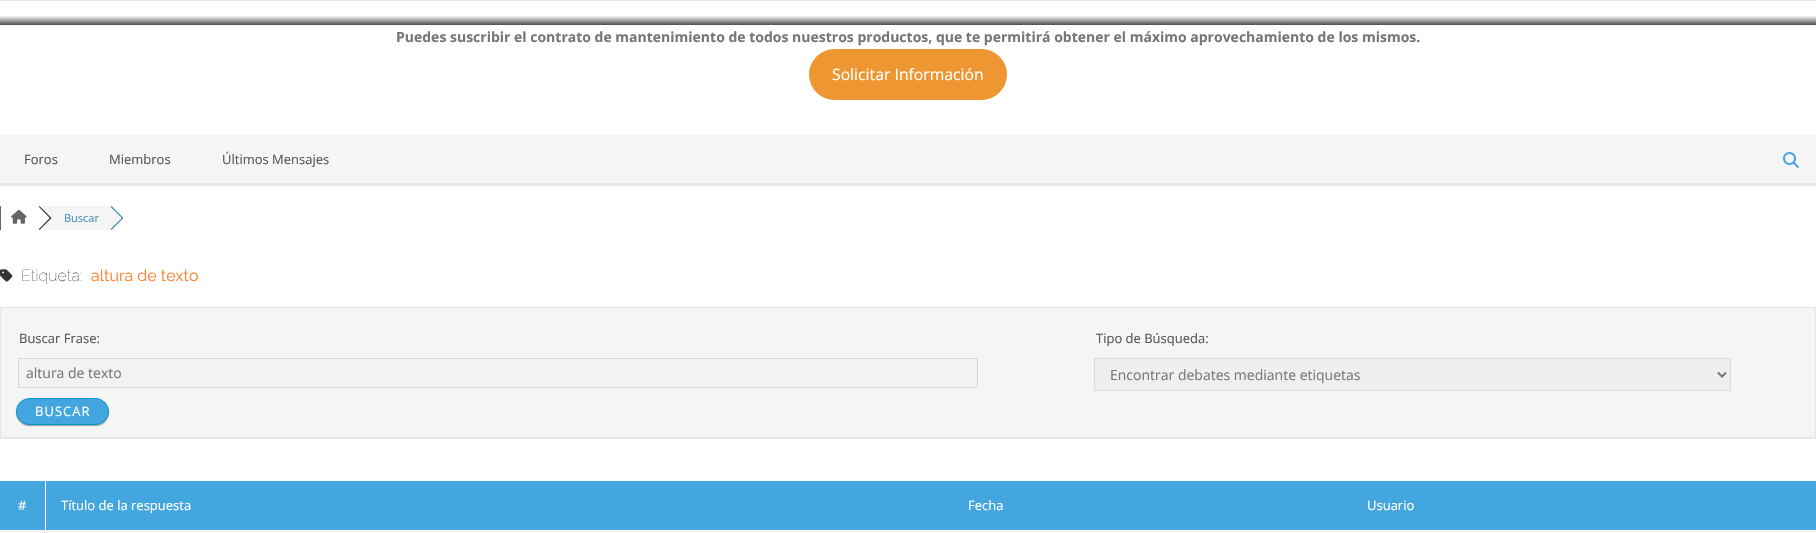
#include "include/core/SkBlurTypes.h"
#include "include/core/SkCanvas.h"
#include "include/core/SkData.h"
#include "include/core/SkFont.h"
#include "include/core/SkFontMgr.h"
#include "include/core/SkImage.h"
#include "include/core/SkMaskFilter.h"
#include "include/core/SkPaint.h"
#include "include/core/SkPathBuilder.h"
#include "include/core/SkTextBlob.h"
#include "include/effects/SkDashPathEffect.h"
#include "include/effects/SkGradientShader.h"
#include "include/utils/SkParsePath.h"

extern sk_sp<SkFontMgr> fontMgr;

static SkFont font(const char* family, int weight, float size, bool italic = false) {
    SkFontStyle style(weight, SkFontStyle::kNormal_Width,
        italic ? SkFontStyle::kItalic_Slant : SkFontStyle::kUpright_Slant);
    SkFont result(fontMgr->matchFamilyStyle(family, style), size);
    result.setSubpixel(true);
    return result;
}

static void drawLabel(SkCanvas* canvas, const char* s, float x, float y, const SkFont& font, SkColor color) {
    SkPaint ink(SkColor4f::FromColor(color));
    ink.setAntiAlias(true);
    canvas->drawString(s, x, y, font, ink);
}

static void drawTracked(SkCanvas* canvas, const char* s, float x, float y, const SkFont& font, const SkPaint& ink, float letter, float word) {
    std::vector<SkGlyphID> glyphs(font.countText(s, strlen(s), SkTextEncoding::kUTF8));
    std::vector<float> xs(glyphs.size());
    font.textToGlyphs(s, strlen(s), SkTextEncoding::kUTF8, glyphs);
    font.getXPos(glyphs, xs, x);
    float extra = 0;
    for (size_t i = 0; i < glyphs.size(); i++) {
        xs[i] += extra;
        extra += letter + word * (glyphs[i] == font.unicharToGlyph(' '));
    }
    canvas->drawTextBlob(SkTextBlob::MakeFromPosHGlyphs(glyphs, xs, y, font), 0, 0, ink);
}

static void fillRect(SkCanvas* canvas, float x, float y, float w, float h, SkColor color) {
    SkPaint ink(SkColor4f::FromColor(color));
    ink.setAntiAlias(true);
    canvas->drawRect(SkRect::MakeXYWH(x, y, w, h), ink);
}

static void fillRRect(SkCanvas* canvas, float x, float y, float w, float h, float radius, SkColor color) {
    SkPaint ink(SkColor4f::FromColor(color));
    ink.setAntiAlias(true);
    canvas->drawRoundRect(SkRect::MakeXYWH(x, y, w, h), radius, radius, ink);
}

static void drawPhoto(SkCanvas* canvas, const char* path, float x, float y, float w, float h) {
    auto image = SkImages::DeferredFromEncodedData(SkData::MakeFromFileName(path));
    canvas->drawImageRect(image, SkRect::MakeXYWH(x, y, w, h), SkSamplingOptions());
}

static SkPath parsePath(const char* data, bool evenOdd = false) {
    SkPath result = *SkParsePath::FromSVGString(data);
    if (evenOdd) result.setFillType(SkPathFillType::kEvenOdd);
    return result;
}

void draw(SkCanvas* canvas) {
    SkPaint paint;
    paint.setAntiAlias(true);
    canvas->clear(0xFFFFFFFF);
    fillRect(canvas, 0, 0, 1816, 1, 0xFFE9E9E9);
    {
        const SkColor colors[] = {0xFF4D4D4D, 0xFFFFFFFF, 0xFFFFFFFF};
        const float stops[] = {0, 0.4f, 1};
        const SkPoint ends[] = {{908, 25}, {908, 1}};
        paint.setShader(SkGradientShader::MakeLinear(ends, colors, stops, 3, SkTileMode::kClamp));
        paint.setAlpha(255);
    }
    canvas->drawRect(SkRect::MakeXYWH(0, 16, 1816, 9), paint);
    SkFont font1 = font("Open Sans", 700, 14);
    drawLabel(canvas, "Puedes suscribir el contrato de mantenimiento de todos nuestros productos, que te permitirá obtener el máximo aprovechamiento de los mismos.", 396, 42, font1, 0xFF777777);
    fillRRect(canvas, 809, 49, 198, 51, 25.5f, 0xFFEE9632);
    SkFont font2 = font("Open Sans", 400, 15.75f);
    drawLabel(canvas, "Solicitar Información", 832, 80, font2, 0xFFFFFFFF);
    fillRect(canvas, 0, 135, 1816, 48, 0xFFF5F5F5);
    fillRect(canvas, 0, 183, 1816, 3, 0xFFE6E6E6);
    SkFont font3 = font("Open Sans", 400, 13);
    drawLabel(canvas, "Foros", 24, 164, font3, 0xFF555555);
    drawLabel(canvas, "Miembros", 109, 164, font3, 0xFF555555);
    drawLabel(canvas, "Últimos Mensajes", 222, 164, font3, 0xFF555555);
    drawPhoto(canvas, "assets/img1.png", 1783, 152, 16, 16);
    fillRect(canvas, 0, 206, 1, 24, 0xFF666666);
    drawPhoto(canvas, "assets/img2.png", 11, 209, 16, 15);
    fillRect(canvas, 42, 206, 72, 24, 0xFFF5F5F5);
    paint.setShader(nullptr);
    paint.setColor(0xFF333333);
    canvas->drawPath(parsePath("M39.5 206L38.5 207L49.5 218L38.5 229L39.5 230L51.5 218Z"), paint);
    paint.setColor(0xFFFFFFFF);
    canvas->drawPath(parsePath("M38 206L49.5 218L38 230L26 218Z"), paint);
    SkFont font4 = font("Open Sans", 400, 11);
    drawLabel(canvas, "Buscar", 64, 222, font4, 0xFF4A8EB3);
    paint.setColor(0xFF4A8EB3);
    canvas->drawPath(parsePath("M111.5 206L110.5 207L121.5 218L110.5 229L111.5 230L123.5 218Z"), paint);
    paint.setColor(0xFFF5F5F5);
    canvas->drawPath(parsePath("M109.5 206L121.5 218L109.5 230L98 218Z"), paint);
    drawPhoto(canvas, "assets/img3.png", 0, 269, 13, 13);
    SkFont font5 = font("Raleway", 100, 16);
    drawLabel(canvas, "Etiqueta:", 21, 281, font5, 0xFF333333);
    SkFont font6 = font("Raleway", 400, 16);
    drawLabel(canvas, "altura de texto", 91, 281, font6, 0xFFFF812D);
    canvas->drawRect(SkRect::MakeXYWH(0.5f, 307.5f, 1815, 130), paint);
    paint.setStroke(true);
    paint.setStrokeWidth(1);
    paint.setColor(0xFFE6E6E6);
    canvas->drawRect(SkRect::MakeXYWH(0.5f, 307.5f, 1815, 130), paint);
    paint.setColor(0xFFFFFFFF);
    paint.setPathEffect(SkDashPathEffect::Make({{1, 1}}, 0));
    canvas->drawPath(parsePath("M11 395.5H1087"), paint);
    paint.setPathEffect(nullptr);
    drawLabel(canvas, "Buscar Frase:", 19, 343, font3, 0xFF555555);
    paint.setStroke(false);
    paint.setColor(0xFFF2F2F2);
    canvas->drawRect(SkRect::MakeXYWH(18.5f, 358.5f, 959, 29), paint);
    paint.setStroke(true);
    paint.setColor(0xFFDADADA);
    canvas->drawRect(SkRect::MakeXYWH(18.5f, 358.5f, 959, 29), paint);
    SkFont font7 = font("Open Sans", 400, 14);
    drawLabel(canvas, "altura de texto", 26, 378, font7, 0xFF777777);
    paint.setColor(0xFFFFFFFF);
    paint.setPathEffect(SkDashPathEffect::Make({{1, 1}}, 0));
    canvas->drawPath(parsePath("M1087 395.5H1805"), paint);
    paint.setPathEffect(nullptr);
    drawLabel(canvas, "Tipo de Búsqueda:", 1096, 343, font3, 0xFF555555);
    paint.setStroke(false);
    paint.setColor(0xFFEFEFEF);
    canvas->drawRect(SkRect::MakeXYWH(1094.5f, 358.5f, 636, 32), paint);
    paint.setStroke(true);
    paint.setColor(0xFFDADADA);
    canvas->drawRect(SkRect::MakeXYWH(1094.5f, 358.5f, 636, 32), paint);
    paint.setStrokeWidth(2);
    paint.setColor(0xFF777777);
    canvas->drawPath(parsePath("M1718 372.5L1722 376.5L1726 372.5"), paint);
    drawLabel(canvas, "Encontrar debates mediante etiquetas", 1110, 380, font7, 0xFF777777);
    paint.setStroke(false);
    paint.setColor(0xFF999999);
    paint.setMaskFilter(SkMaskFilter::MakeBlur(kNormal_SkBlurStyle, 0.5f));
    canvas->drawRoundRect(SkRect::MakeXYWH(16, 399, 93, 27), 13.5f, 13.5f, paint);
    paint.setMaskFilter(nullptr);
    paint.setColor(0xFF43A6DF);
    canvas->drawRoundRect(SkRect::MakeXYWH(16.5f, 398.5f, 92, 26), 13, 13, paint);
    paint.setStroke(true);
    paint.setStrokeWidth(1);
    paint.setColor(0xFF0099CC);
    canvas->drawRoundRect(SkRect::MakeXYWH(16.5f, 398.5f, 92, 26), 13, 13, paint);
    paint.setStroke(false);
    paint.setColor(0xFFFFFFFF);
    drawTracked(canvas, "BUSCAR", 35, 416, font3, paint, 1, 0);
    fillRect(canvas, 0, 438, 1816, 1, 0xFFE9E9E9);
    fillRect(canvas, 0, 530, 1816, 3, 0xFFF5F5F5);
    fillRect(canvas, 0, 481, 1816, 49, 0xFF43A6DF);
    fillRect(canvas, 45, 481, 1, 52, 0xFFFFFFFF);
    drawLabel(canvas, "#", 18, 510, font3, 0xFFFFFFFF);
    drawLabel(canvas, "Título de la respuesta", 61, 510, font3, 0xFFFFFFFF);
    drawLabel(canvas, "Fecha", 968, 510, font3, 0xFFFFFFFF);
    drawLabel(canvas, "Usuario", 1367, 510, font3, 0xFFFFFFFF);
}
